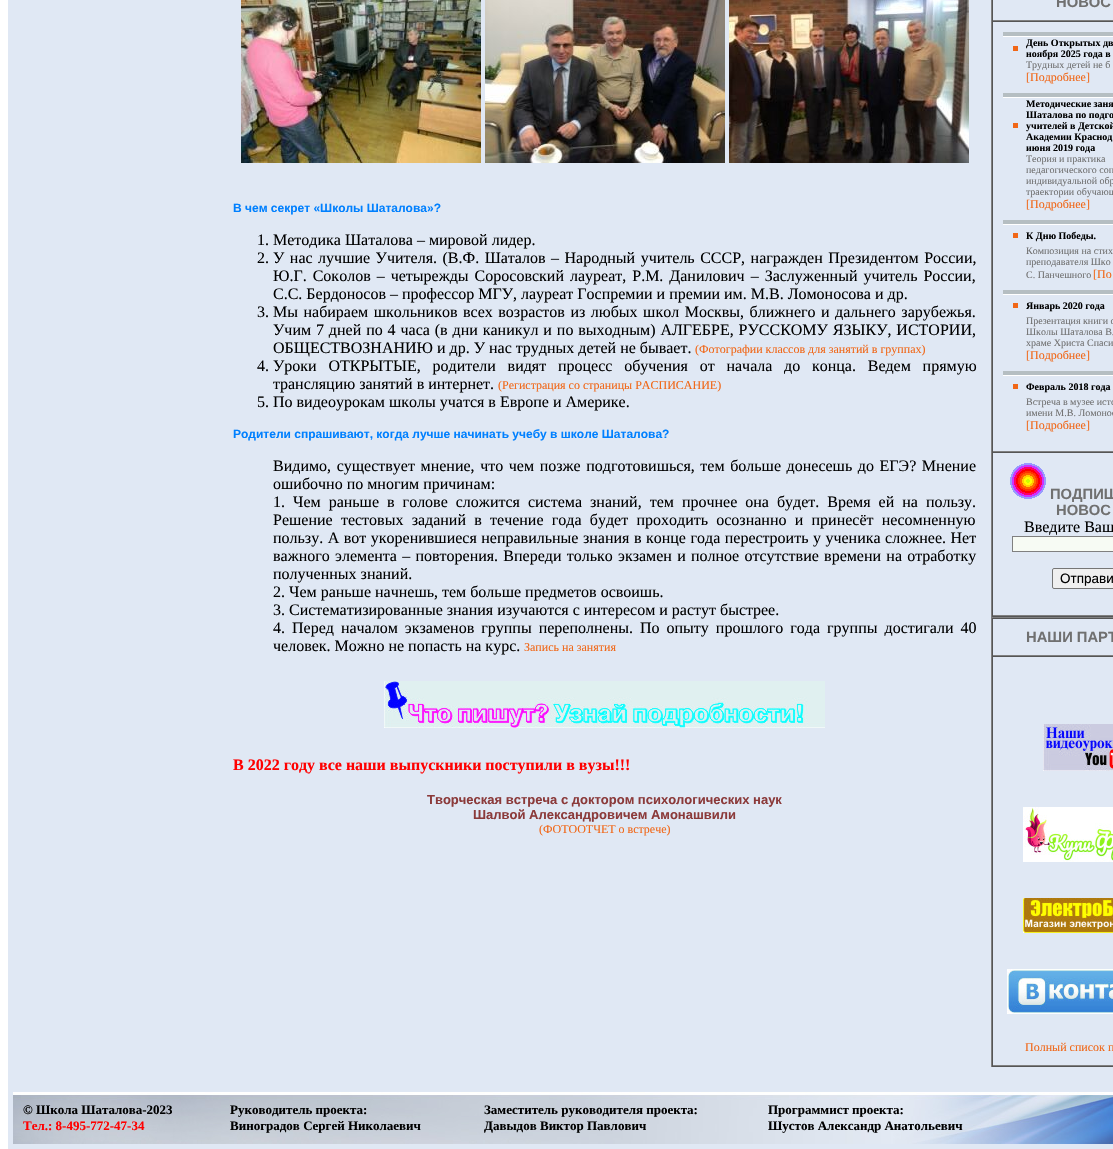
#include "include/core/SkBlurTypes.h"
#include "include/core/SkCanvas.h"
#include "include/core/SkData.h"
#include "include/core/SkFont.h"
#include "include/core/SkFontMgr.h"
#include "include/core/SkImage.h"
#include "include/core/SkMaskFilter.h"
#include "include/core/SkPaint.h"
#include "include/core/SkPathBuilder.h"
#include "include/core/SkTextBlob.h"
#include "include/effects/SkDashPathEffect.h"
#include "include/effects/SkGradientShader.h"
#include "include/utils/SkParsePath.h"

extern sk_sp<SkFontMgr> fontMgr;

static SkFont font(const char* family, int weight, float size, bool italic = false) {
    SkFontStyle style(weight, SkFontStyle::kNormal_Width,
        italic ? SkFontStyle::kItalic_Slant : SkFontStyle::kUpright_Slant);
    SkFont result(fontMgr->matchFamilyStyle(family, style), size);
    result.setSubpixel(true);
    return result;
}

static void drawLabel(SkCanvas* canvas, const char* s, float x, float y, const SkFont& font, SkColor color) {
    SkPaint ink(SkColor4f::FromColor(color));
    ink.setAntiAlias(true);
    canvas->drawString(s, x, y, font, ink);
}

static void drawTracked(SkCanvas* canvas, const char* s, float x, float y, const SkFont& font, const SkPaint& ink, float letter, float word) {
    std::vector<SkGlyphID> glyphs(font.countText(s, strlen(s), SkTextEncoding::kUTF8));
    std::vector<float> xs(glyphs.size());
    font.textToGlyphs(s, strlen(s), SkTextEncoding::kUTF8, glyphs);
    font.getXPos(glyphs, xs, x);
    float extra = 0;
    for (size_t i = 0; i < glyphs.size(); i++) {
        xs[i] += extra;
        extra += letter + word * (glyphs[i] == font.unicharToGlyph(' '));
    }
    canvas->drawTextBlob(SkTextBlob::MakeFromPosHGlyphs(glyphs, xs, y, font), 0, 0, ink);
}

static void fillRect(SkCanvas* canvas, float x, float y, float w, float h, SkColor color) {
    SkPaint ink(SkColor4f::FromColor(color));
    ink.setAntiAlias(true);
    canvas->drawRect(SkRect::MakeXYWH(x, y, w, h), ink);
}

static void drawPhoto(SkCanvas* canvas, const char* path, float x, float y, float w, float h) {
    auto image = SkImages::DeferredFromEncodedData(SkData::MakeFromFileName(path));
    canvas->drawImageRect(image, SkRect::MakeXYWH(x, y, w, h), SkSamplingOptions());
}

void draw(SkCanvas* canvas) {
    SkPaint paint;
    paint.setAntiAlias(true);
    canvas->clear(0xFFFFFFFF);
    fillRect(canvas, 8, 0, 1105, 1149, 0xFFE0E8F4);
    drawPhoto(canvas, "assets/img1.png", 241, 0, 240, 163);
    drawPhoto(canvas, "assets/img2.png", 485, 0, 240, 163);
    drawPhoto(canvas, "assets/img3.png", 729, 0, 240, 163);
    SkFont font1 = font("Liberation Sans", 700, 12);
    drawLabel(canvas, "В чем секрет «Школы Шаталова»?", 233, 212, font1, 0xFF0080FF);
    SkFont font2 = font("Liberation Serif", 400, 16);
    drawLabel(canvas, "1. Методика Шаталова – мировой лидер.", 257, 245, font2, 0xFF000000);
    drawLabel(canvas, "2.", 257, 263, font2, 0xFF000000);
    paint.setColor(0xFF000000);
    drawTracked(canvas, "У нас лучшие Учителя. (В.Ф. Шаталов – Народный учитель СССР, награжден Президентом России,", 273, 263, font2, paint, 0, 1.5f);
    drawTracked(canvas, "Ю.Г. Соколов – четырежды Соросовский лауреат, Р.М. Данилович – Заслуженный учитель России,", 273, 281, font2, paint, 0, 2);
    drawLabel(canvas, "С.С. Бердоносов – профессор МГУ, лауреат Госпремии и премии им. М.В. Ломоносова и др.", 273, 299, font2, 0xFF000000);
    drawLabel(canvas, "3.", 257, 317, font2, 0xFF000000);
    drawTracked(canvas, "Мы набираем школьников всех возрастов из любых школ Москвы, ближнего и дальнего зарубежья.", 273, 317, font2, paint, 0, 1.5f);
    drawTracked(canvas, "Учим 7 дней по 4 часа (в дни каникул и по выходным) АЛГЕБРЕ, РУССКОМУ ЯЗЫКУ, ИСТОРИИ,", 273, 335, font2, paint, 0, 0.9f);
    drawLabel(canvas, "ОБЩЕСТВОЗНАНИЮ и др. У нас трудных детей не бывает.", 273, 353, font2, 0xFF000000);
    SkFont font3 = font("Liberation Serif", 400, 12);
    drawLabel(canvas, "(Фотографии классов для занятий в группах)", 695, 353, font3, 0xFFF16717);
    drawLabel(canvas, "4.", 257, 371, font2, 0xFF000000);
    drawTracked(canvas, "Уроки ОТКРЫТЫЕ, родители видят процесс обучения от начала до конца. Ведем прямую", 273, 371, font2, paint, 0, 7.75f);
    drawLabel(canvas, "трансляцию занятий в интернет.", 273, 389, font2, 0xFF000000);
    drawLabel(canvas, "(Регистрация со страницы РАСПИСАНИЕ)", 498, 389, font3, 0xFFF16717);
    drawLabel(canvas, "5. По видеоурокам школы учатся в Европе и Америке.", 257, 407, font2, 0xFF000000);
    drawLabel(canvas, "Родители спрашивают, когда лучше начинать учебу в школе Шаталова?", 233, 438, font1, 0xFF0080FF);
    drawTracked(canvas, "Видимо, существует мнение, что чем позже подготовишься, тем больше донесешь до ЕГЭ? Мнение", 273, 471, font2, paint, 0, 1.6f);
    drawLabel(canvas, "ошибочно по многим причинам:", 273, 489, font2, 0xFF000000);
    drawTracked(canvas, "1. Чем раньше в голове сложится система знаний, тем прочнее она будет. Время ей на пользу.", 273, 507, font2, paint, 0, 4);
    drawTracked(canvas, "Решение тестовых заданий в течение года будет проходить осознанно и принесёт несомненную", 273, 525, font2, paint, 0, 4.25f);
    drawTracked(canvas, "пользу. А вот укоренившиеся неправильные знания в конце года перестроить у ученика сложнее. Нет", 273, 543, font2, paint, 0, 0.5f);
    drawTracked(canvas, "важного элемента – повторения. Впереди только экзамен и полное отсутствие времени на отработку", 273, 561, font2, paint, 0, 1.25f);
    drawLabel(canvas, "полученных знаний.", 273, 579, font2, 0xFF000000);
    drawLabel(canvas, "2. Чем раньше начнешь, тем больше предметов освоишь.", 273, 597, font2, 0xFF000000);
    drawLabel(canvas, "3. Систематизированные знания изучаются с интересом и растут быстрее.", 273, 615, font2, 0xFF000000);
    drawTracked(canvas, "4. Перед началом экзаменов группы переполнены. По опыту прошлого года группы достигали 40", 273, 633, font2, paint, 0, 3);
    drawLabel(canvas, "человек. Можно не попасть на курс.", 273, 651, font2, 0xFF000000);
    drawLabel(canvas, "Запись на занятия", 524, 651, font3, 0xFFF16717);
    drawPhoto(canvas, "assets/img4.png", 384, 681, 441, 47);
    SkFont font4 = font("Liberation Serif", 700, 16);
    drawLabel(canvas, "В 2022 году все наши выпускники поступили в вузы!!!", 233, 770, font4, 0xFFFF0000);
    SkFont font5 = font("Liberation Sans", 700, 13);
    drawLabel(canvas, "Творческая встреча с доктором психологических наук", 427, 804, font5, 0xFF8B3A3A);
    drawLabel(canvas, "Шалвой Александровичем Амонашвили", 473, 819, font5, 0xFF8B3A3A);
    drawLabel(canvas, "(ФОТООТЧЕТ о встрече)", 539, 833, font3, 0xFFF16717);
    fillRect(canvas, 991, 616, 122, 1, 0xFF555555);
    fillRect(canvas, 991, 0, 1, 617, 0xFF808080);
    fillRect(canvas, 992, 20, 121, 1, 0xFF808080);
    fillRect(canvas, 992, 0, 1, 21, 0xFF555555);
    SkFont font6 = font("Liberation Sans", 700, 14.75f);
    drawLabel(canvas, "НОВОС", 1056, 7, font6, 0xFF707070);
    fillRect(canvas, 992, 21, 121, 1, 0xFF555555);
    fillRect(canvas, 992, 451, 121, 1, 0xFF808080);
    fillRect(canvas, 992, 21, 1, 431, 0xFF555555);
    fillRect(canvas, 1003, 32, 110, 4, 0xFFB5BEC2);
    fillRect(canvas, 1003, 36, 110, 1, 0xFFFFFFFF);
    fillRect(canvas, 1013, 46, 5, 5, 0xFFF16717);
    SkFont font7 = font("Liberation Serif", 700, 10);
    drawLabel(canvas, "День Открытых дв", 1026, 46, font7, 0xFF000000);
    drawLabel(canvas, "ноября 2025 года в", 1026, 57, font7, 0xFF000000);
    SkFont font8 = font("Liberation Serif", 400, 10);
    drawLabel(canvas, "Трудных детей не б", 1026, 68, font8, 0xFF707070);
    drawLabel(canvas, "[Подробнее]", 1026, 81, font3, 0xFFF16717);
    fillRect(canvas, 1003, 93, 110, 4, 0xFFB5BEC2);
    fillRect(canvas, 1003, 97, 110, 1, 0xFFFFFFFF);
    fillRect(canvas, 1013, 123, 5, 5, 0xFFF16717);
    drawLabel(canvas, "Методические заня", 1026, 107, font7, 0xFF000000);
    drawLabel(canvas, "Шаталова по подго", 1026, 118, font7, 0xFF000000);
    drawLabel(canvas, "учителей в Детской", 1026, 129, font7, 0xFF000000);
    drawLabel(canvas, "Академии Краснод", 1026, 140, font7, 0xFF000000);
    drawLabel(canvas, "июня 2019 года", 1026, 151, font7, 0xFF000000);
    drawLabel(canvas, "Теория и практика", 1026, 162, font8, 0xFF707070);
    drawLabel(canvas, "педагогического соп", 1026, 173, font8, 0xFF707070);
    drawLabel(canvas, "индивидуальной обр", 1026, 184, font8, 0xFF707070);
    drawLabel(canvas, "траектории обучающ", 1026, 195, font8, 0xFF707070);
    drawLabel(canvas, "[Подробнее]", 1026, 208, font3, 0xFFF16717);
    fillRect(canvas, 1003, 220, 110, 4, 0xFFB5BEC2);
    fillRect(canvas, 1003, 224, 110, 1, 0xFFFFFFFF);
    fillRect(canvas, 1013, 233, 5, 5, 0xFFF16717);
    drawLabel(canvas, "К Дню Победы.", 1026, 239, font7, 0xFF000000);
    drawLabel(canvas, "Композиция на стих", 1026, 254, font8, 0xFF707070);
    drawLabel(canvas, "преподавателя Шко", 1026, 265, font8, 0xFF707070);
    drawLabel(canvas, "С. Панчешного", 1026, 278, font8, 0xFF707070);
    drawLabel(canvas, "[По", 1093, 278, font3, 0xFFF16717);
    fillRect(canvas, 1003, 290, 110, 4, 0xFFB5BEC2);
    fillRect(canvas, 1003, 294, 110, 1, 0xFFFFFFFF);
    fillRect(canvas, 1013, 303, 5, 5, 0xFFF16717);
    drawLabel(canvas, "Январь 2020 года", 1026, 309, font7, 0xFF000000);
    drawLabel(canvas, "Презентация книги о", 1026, 324, font8, 0xFF707070);
    drawLabel(canvas, "Школы Шаталова В.", 1026, 335, font8, 0xFF707070);
    drawLabel(canvas, "храме Христа Спаси", 1026, 346, font8, 0xFF707070);
    drawLabel(canvas, "[Подробнее]", 1026, 359, font3, 0xFFF16717);
    fillRect(canvas, 1003, 371, 110, 4, 0xFFB5BEC2);
    fillRect(canvas, 1003, 375, 110, 1, 0xFFFFFFFF);
    fillRect(canvas, 1013, 384, 5, 5, 0xFFF16717);
    drawLabel(canvas, "Февраль 2018 года", 1026, 390, font7, 0xFF000000);
    drawLabel(canvas, "Встреча в музее исто", 1026, 405, font8, 0xFF707070);
    drawLabel(canvas, "имени М.В. Ломонос", 1026, 416, font8, 0xFF707070);
    drawLabel(canvas, "[Подробнее]", 1026, 429, font3, 0xFFF16717);
    fillRect(canvas, 992, 452, 121, 1, 0xFF555555);
    fillRect(canvas, 992, 615, 121, 1, 0xFF808080);
    fillRect(canvas, 992, 452, 1, 164, 0xFF555555);
    drawPhoto(canvas, "assets/img5.png", 1010, 463, 36, 36);
    drawLabel(canvas, "ПОДПИШ", 1050, 499, font6, 0xFF707070);
    drawLabel(canvas, "НОВОС", 1056, 515, font6, 0xFF707070);
    drawLabel(canvas, "Введите Ваш", 1024, 532, font2, 0xFF000000);
    paint.setColor(0xFFF7FBF4);
    canvas->drawRect(SkRect::MakeXYWH(1012.5f, 536.5f, 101, 15), paint);
    paint.setStroke(true);
    paint.setStrokeWidth(1);
    paint.setColor(0xFF808080);
    canvas->drawRect(SkRect::MakeXYWH(1012.5f, 536.5f, 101, 15), paint);
    paint.setStroke(false);
    paint.setColor(0xFFEFEFEF);
    canvas->drawRoundRect(SkRect::MakeXYWH(1052.5f, 568.5f, 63, 20), 1.5f, 1.5f, paint);
    paint.setStroke(true);
    paint.setColor(0xFF767676);
    canvas->drawRoundRect(SkRect::MakeXYWH(1052.5f, 568.5f, 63, 20), 1.5f, 1.5f, paint);
    SkFont font9 = font("Liberation Sans", 400, 13.5f);
    drawLabel(canvas, "Отправи", 1060, 583, font9, 0xFF000000);
    fillRect(canvas, 991, 617, 122, 1, 0xFF808080);
    fillRect(canvas, 991, 1066, 122, 1, 0xFF555555);
    fillRect(canvas, 991, 617, 1, 450, 0xFF808080);
    fillRect(canvas, 992, 618, 121, 1, 0xFF555555);
    fillRect(canvas, 992, 655, 121, 1, 0xFF808080);
    fillRect(canvas, 992, 618, 1, 38, 0xFF555555);
    drawLabel(canvas, "НАШИ ПАРТ", 1026, 642, font6, 0xFF707070);
    fillRect(canvas, 992, 656, 121, 1, 0xFF555555);
    fillRect(canvas, 992, 1065, 121, 1, 0xFF808080);
    fillRect(canvas, 992, 656, 1, 410, 0xFF555555);
    drawPhoto(canvas, "assets/img6.png", 1043, 724, 70, 47);
    drawPhoto(canvas, "assets/img7.png", 1023, 807, 90, 55);
    drawPhoto(canvas, "assets/img8.png", 1023, 898, 90, 35);
    drawPhoto(canvas, "assets/img9.png", 1007, 969, 106, 45);
    drawLabel(canvas, "Полный список п", 1025, 1051, font3, 0xFFF16717);
    drawPhoto(canvas, "assets/img10.png", 13, 1092, 1100, 52);
    SkFont font10 = font("Liberation Serif", 700, 13);
    drawLabel(canvas, "© Школа Шаталова-2023", 23, 1114, font10, 0xFF000000);
    drawLabel(canvas, "Тел.: 8-495-772-47-34", 23, 1130, font10, 0xFFFF0000);
    drawLabel(canvas, "Руководитель проекта:", 230, 1114, font10, 0xFF000000);
    drawLabel(canvas, "Виноградов Сергей Николаевич", 230, 1130, font10, 0xFF000000);
    drawLabel(canvas, "Заместитель руководителя проекта:", 484, 1114, font10, 0xFF000000);
    drawLabel(canvas, "Давыдов Виктор Павлович", 484, 1130, font10, 0xFF000000);
    drawLabel(canvas, "Программист проекта:", 768, 1114, font10, 0xFF000000);
    drawLabel(canvas, "Шустов Александр Анатольевич", 768, 1130, font10, 0xFF000000);
}
